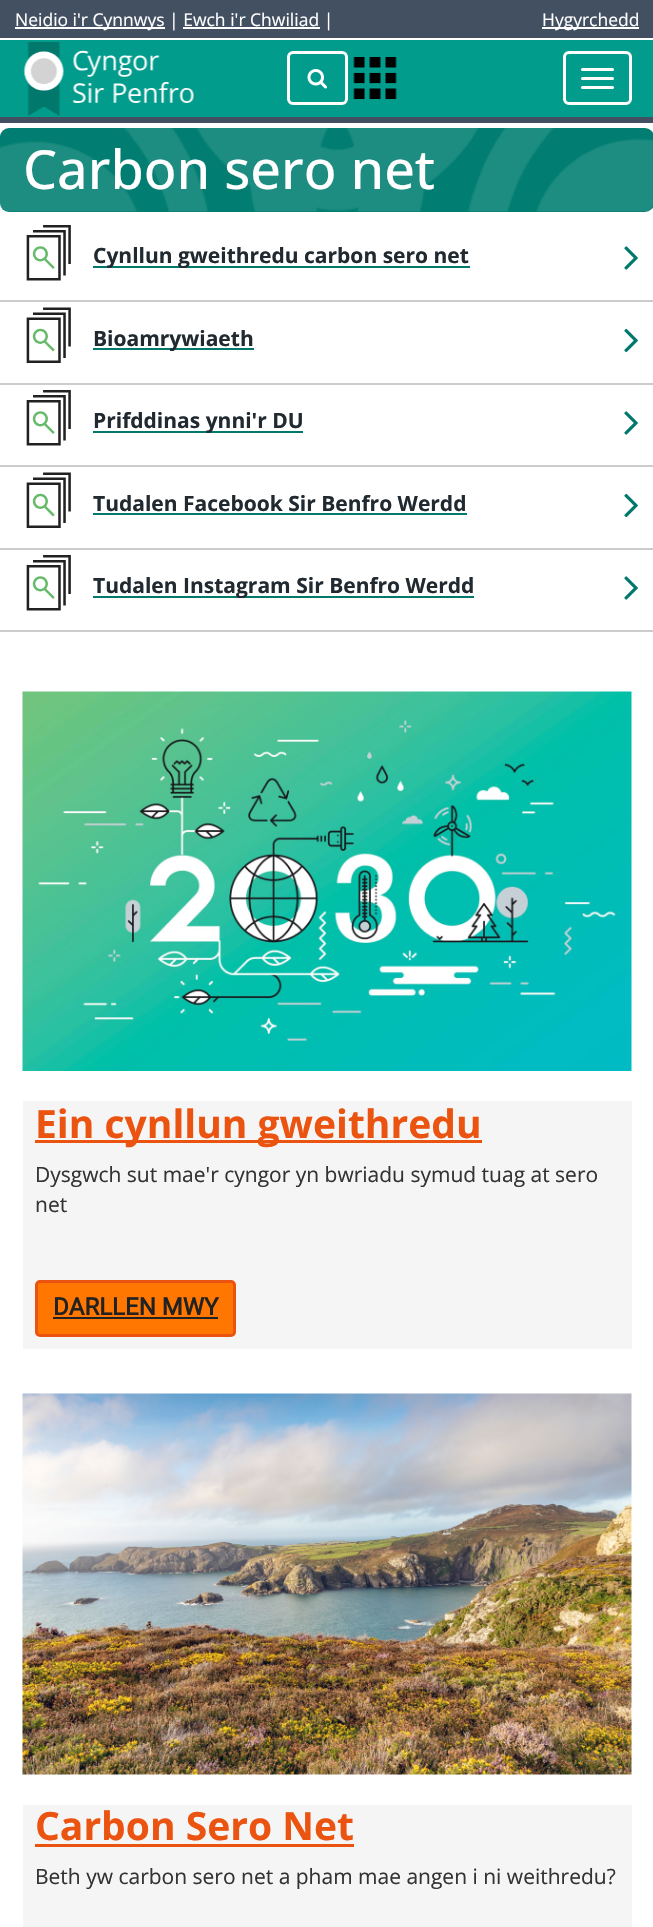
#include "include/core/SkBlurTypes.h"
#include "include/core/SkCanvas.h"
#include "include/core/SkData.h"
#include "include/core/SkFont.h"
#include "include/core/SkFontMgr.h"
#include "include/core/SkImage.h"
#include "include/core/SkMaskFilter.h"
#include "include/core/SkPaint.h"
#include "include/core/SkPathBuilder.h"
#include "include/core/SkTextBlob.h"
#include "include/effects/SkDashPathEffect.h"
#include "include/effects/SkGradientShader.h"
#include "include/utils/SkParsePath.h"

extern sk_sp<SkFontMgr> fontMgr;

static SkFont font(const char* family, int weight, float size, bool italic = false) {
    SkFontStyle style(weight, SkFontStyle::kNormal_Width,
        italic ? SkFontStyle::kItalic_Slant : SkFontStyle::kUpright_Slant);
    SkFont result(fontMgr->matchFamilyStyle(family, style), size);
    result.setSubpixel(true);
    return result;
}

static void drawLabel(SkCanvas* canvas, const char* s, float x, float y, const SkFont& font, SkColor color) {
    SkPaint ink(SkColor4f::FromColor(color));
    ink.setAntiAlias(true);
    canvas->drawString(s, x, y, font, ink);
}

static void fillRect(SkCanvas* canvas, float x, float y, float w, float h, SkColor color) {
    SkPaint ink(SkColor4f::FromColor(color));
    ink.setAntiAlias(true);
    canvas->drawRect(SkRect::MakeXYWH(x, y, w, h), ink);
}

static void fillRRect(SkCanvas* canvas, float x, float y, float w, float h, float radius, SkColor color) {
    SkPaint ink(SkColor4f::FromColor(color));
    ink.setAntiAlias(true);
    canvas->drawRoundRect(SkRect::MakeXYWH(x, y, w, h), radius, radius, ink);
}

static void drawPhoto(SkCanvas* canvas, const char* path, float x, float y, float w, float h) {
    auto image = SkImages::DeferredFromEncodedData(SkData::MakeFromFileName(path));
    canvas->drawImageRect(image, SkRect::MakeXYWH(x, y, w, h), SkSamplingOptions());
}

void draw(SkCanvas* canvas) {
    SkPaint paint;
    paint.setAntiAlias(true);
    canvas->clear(0xFFFFFFFF);
    fillRect(canvas, 0, 40, 653, 77, 0xFF019C8C);
    fillRect(canvas, 0, 117, 653, 6, 0xFF435061);
    fillRect(canvas, 0, 0, 653, 38, 0xFF435061);
    fillRect(canvas, 15, 27, 150, 2, 0xFFFFFFFF);
    SkFont font1 = font("Open Sans", 400, 17.5f);
    drawLabel(canvas, "Neidio i'r Cynnwys | Ewch i'r Chwiliad |", 15, 26, font1, 0xFFFFFFFF);
    fillRect(canvas, 542, 27, 97, 2, 0xFFFFFFFF);
    drawLabel(canvas, "Hygyrchedd", 542, 26, font1, 0xFFFFFFFF);
    fillRect(canvas, 183, 27, 137, 2, 0xFFFFFFFF);
    drawPhoto(canvas, "assets/img1.png", 23, 42, 171, 74);
    paint.setStroke(true);
    paint.setStrokeWidth(3);
    paint.setColor(0xFFFFFFFF);
    canvas->drawRoundRect(SkRect::MakeXYWH(288.5f, 52.5f, 58, 51), 4.5f, 4.5f, paint);
    drawPhoto(canvas, "assets/img2.png", 307, 69, 20, 20);
    drawPhoto(canvas, "assets/img3.png", 353, 57, 44, 42);
    canvas->drawRoundRect(SkRect::MakeXYWH(564.5f, 52.5f, 66, 51), 4.5f, 4.5f, paint);
    fillRRect(canvas, 581, 68, 33, 3, 1.5f, 0xFFFFFFFF);
    fillRRect(canvas, 581, 77, 33, 3, 1.5f, 0xFFFFFFFF);
    fillRRect(canvas, 581, 86, 33, 3, 1.5f, 0xFFFFFFFF);
    fillRRect(canvas, 0, 128, 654, 84, 9, 0xFF017E71);
    drawPhoto(canvas, "assets/img4.png", 0, 128, 653, 84);
    SkFont font2 = font("Open Sans", 500, 54);
    drawLabel(canvas, "Carbon sero net", 23, 189, font2, 0xFFFFFFFF);
    fillRect(canvas, 0, 300, 653, 2, 0xFFCCCCCC);
    drawPhoto(canvas, "assets/img5.png", 26, 225, 45, 56);
    fillRect(canvas, 93, 266, 377, 2, 0xFF00786C);
    SkFont font3 = font("Open Sans", 700, 21);
    drawLabel(canvas, "Cynllun gweithredu carbon sero net", 93, 263, font3, 0xFF202A30);
    drawPhoto(canvas, "assets/img6.png", 624, 246, 14, 24);
    fillRect(canvas, 0, 383, 653, 2, 0xFFCCCCCC);
    drawPhoto(canvas, "assets/img7.png", 26, 307, 45, 56);
    fillRect(canvas, 93, 348, 161, 2, 0xFF00786C);
    drawLabel(canvas, "Bioamrywiaeth", 93, 346, font3, 0xFF202A30);
    drawPhoto(canvas, "assets/img8.png", 624, 328, 14, 25);
    fillRect(canvas, 0, 465, 653, 2, 0xFFCCCCCC);
    drawPhoto(canvas, "assets/img9.png", 26, 390, 45, 56);
    fillRect(canvas, 93, 431, 210, 2, 0xFF00786C);
    drawLabel(canvas, "Prifddinas ynni'r DU", 93, 428, font3, 0xFF202A30);
    drawPhoto(canvas, "assets/img6.png", 624, 411, 14, 24);
    fillRect(canvas, 0, 548, 653, 2, 0xFFCCCCCC);
    drawPhoto(canvas, "assets/img10.png", 26, 472, 45, 56);
    drawLabel(canvas, "Tudalen Facebook Sir Benfro Werdd", 93, 511, font3, 0xFF202A30);
    fillRect(canvas, 93, 513, 374, 2, 0xFF00786C);
    drawPhoto(canvas, "assets/img8.png", 624, 493, 14, 25);
    fillRect(canvas, 0, 630, 653, 2, 0xFFCCCCCC);
    drawPhoto(canvas, "assets/img9.png", 26, 555, 45, 56);
    fillRect(canvas, 93, 596, 381, 2, 0xFF00786C);
    drawLabel(canvas, "Tudalen Instagram Sir Benfro Werdd", 93, 593, font3, 0xFF202A30);
    drawPhoto(canvas, "assets/img6.png", 624, 576, 14, 24);
    drawPhoto(canvas, "assets/img11.png", 22, 691, 610, 380);
    fillRect(canvas, 23, 1101, 609, 248, 0xFFF5F5F5);
    fillRect(canvas, 35, 1140, 447, 3, 0xFFEB5310);
    SkFont font4 = font("Open Sans", 700, 39);
    drawLabel(canvas, "Ein cynllun gweithredu", 35, 1138, font4, 0xFFEB5310);
    SkFont font5 = font("Open Sans", 400, 21);
    drawLabel(canvas, "Dysgwch sut mae'r cyngor yn bwriadu symud tuag at sero", 35, 1182, font5, 0xFF333333);
    drawLabel(canvas, "net", 35, 1212, font5, 0xFF333333);
    paint.setStroke(false);
    paint.setColor(0xFFFF7600);
    canvas->drawRoundRect(SkRect::MakeXYWH(36.5f, 1281.5f, 198, 54), 3.5f, 3.5f, paint);
    paint.setStroke(true);
    paint.setColor(0xFFEB5310);
    canvas->drawRoundRect(SkRect::MakeXYWH(36.5f, 1281.5f, 198, 54), 3.5f, 3.5f, paint);
    SkFont font6 = font("Roboto", 700, 24);
    drawLabel(canvas, "DARLLEN MWY", 53, 1315, font6, 0xFF222222);
    fillRect(canvas, 53, 1317, 165, 2, 0xFF222222);
    drawPhoto(canvas, "assets/img12.png", 22, 1393, 610, 382);
    fillRect(canvas, 23, 1805, 609, 122, 0xFFF5F5F5);
    drawLabel(canvas, "Carbon Sero Net", 35, 1840, font4, 0xFFEB5310);
    fillRect(canvas, 35, 1844, 319, 3, 0xFFEB5310);
    drawLabel(canvas, "Beth yw carbon sero net a pham mae angen i ni weithredu?", 35, 1884, font5, 0xFF333333);
}
